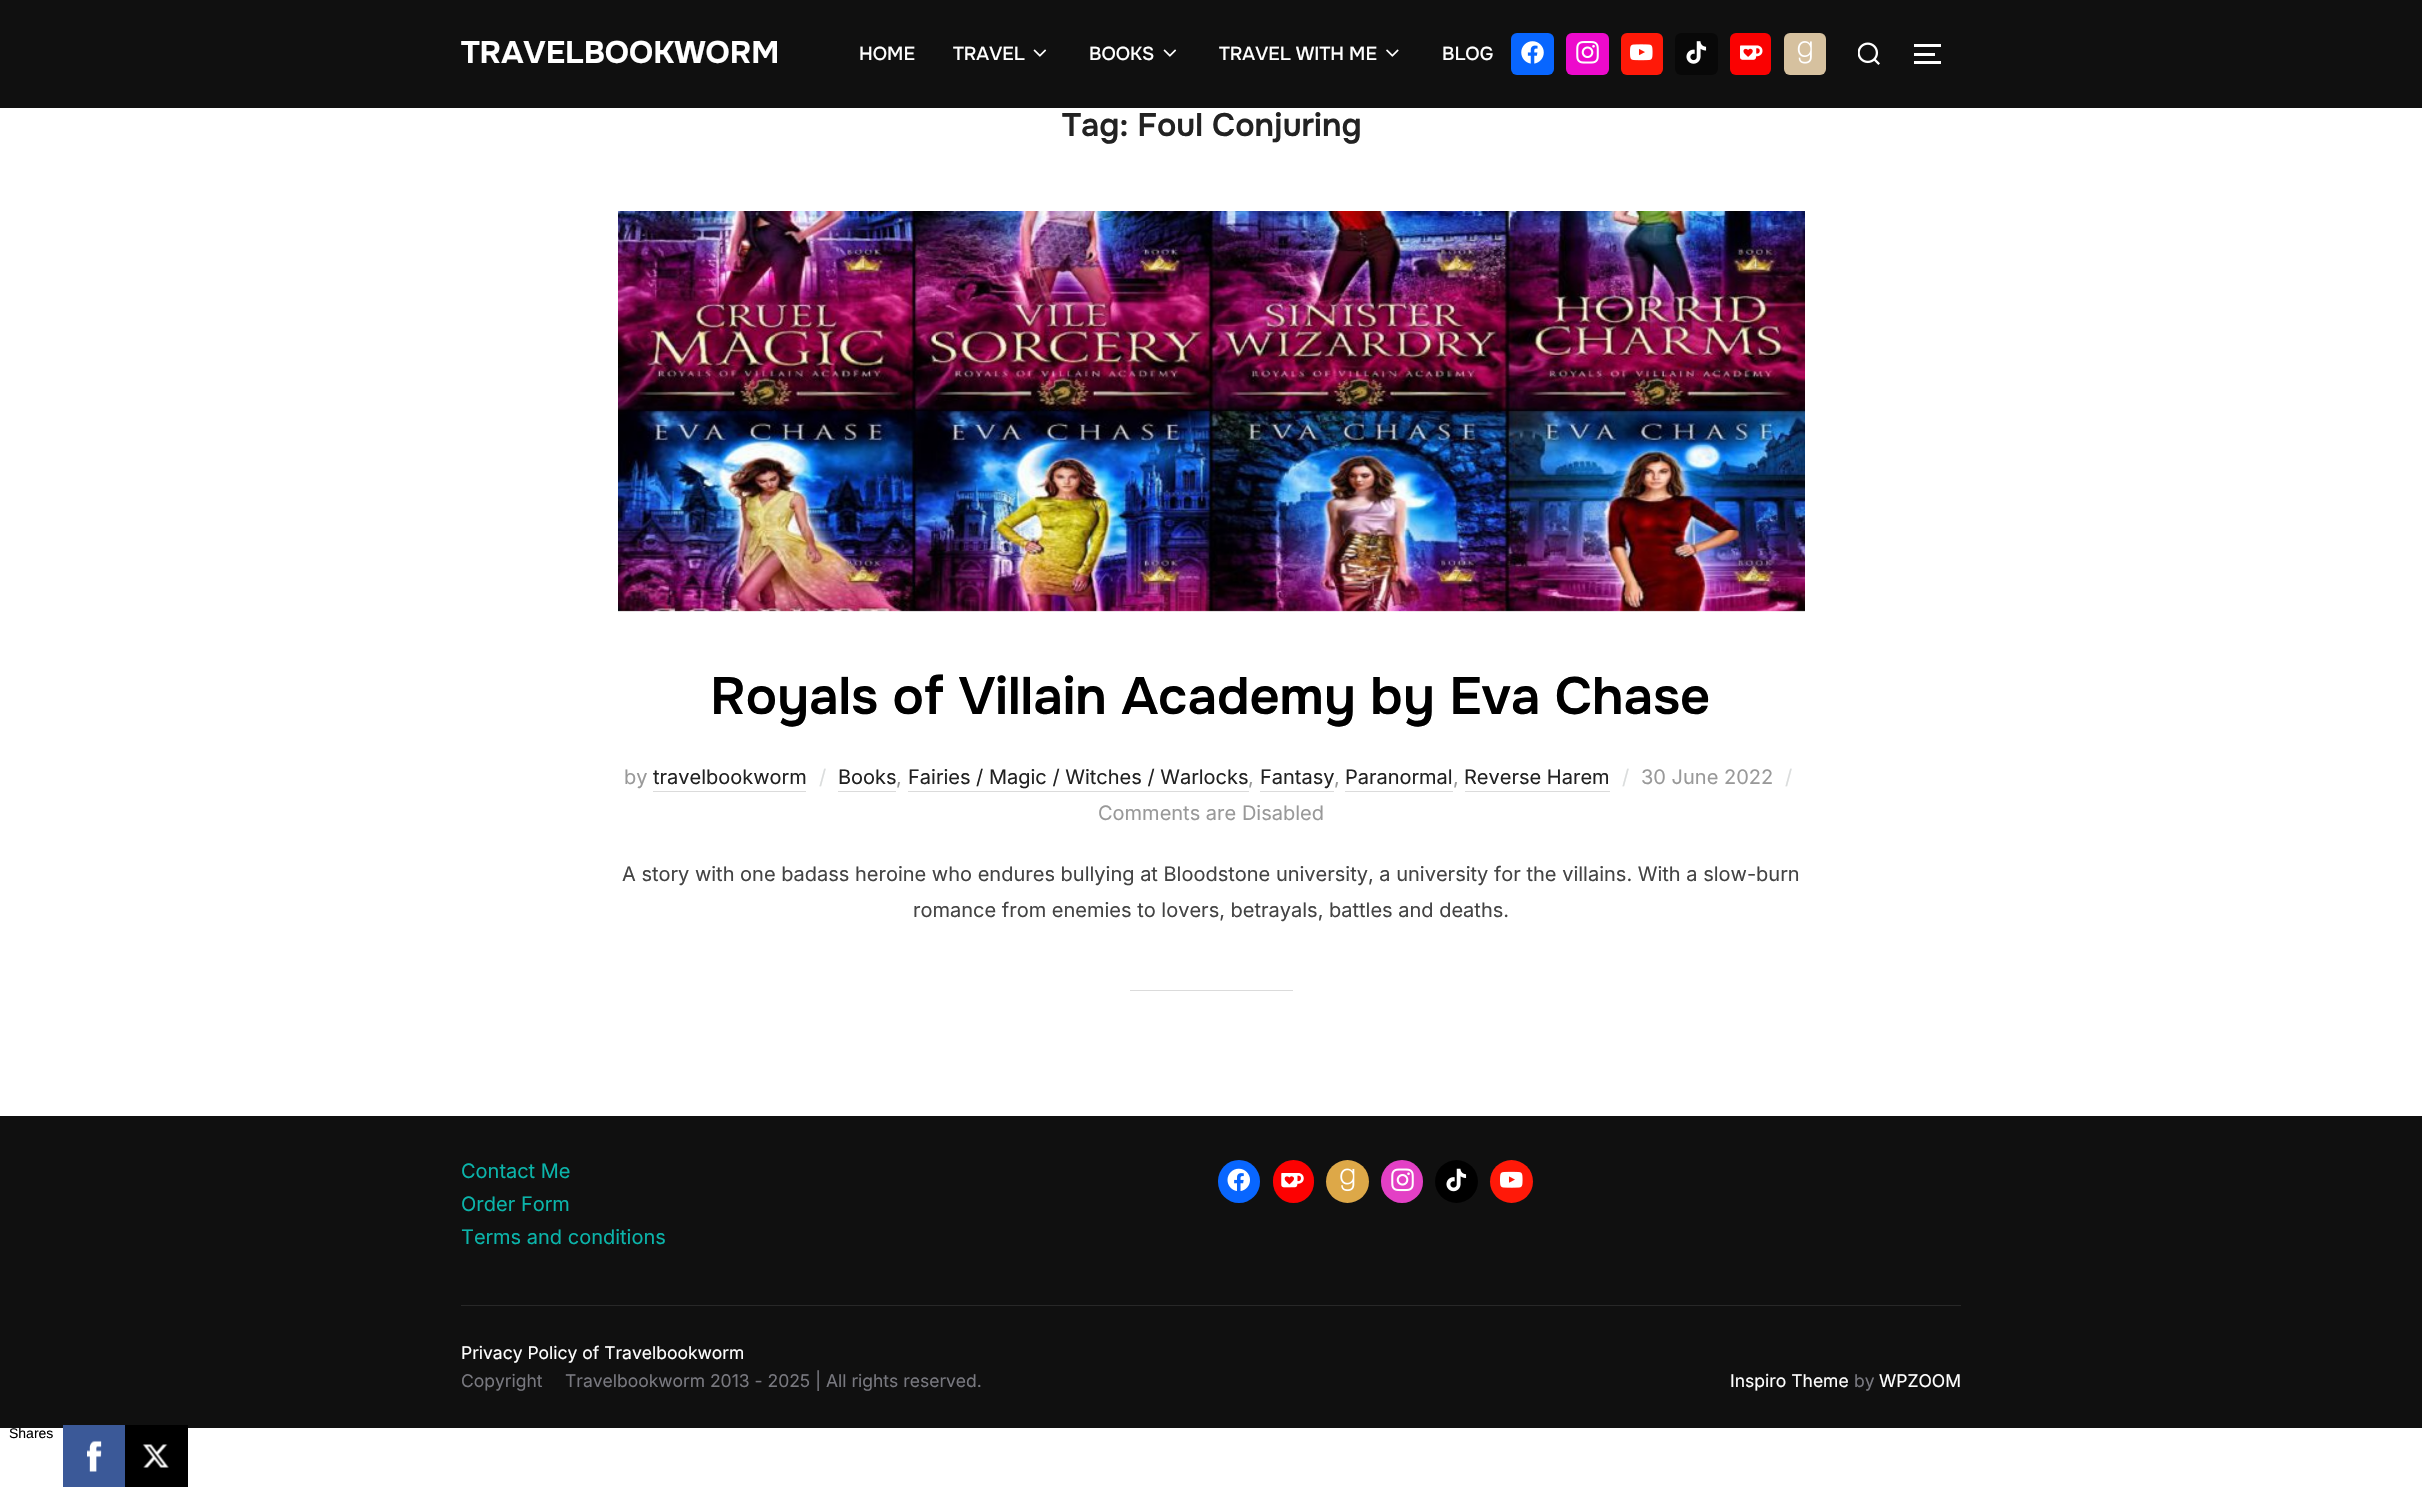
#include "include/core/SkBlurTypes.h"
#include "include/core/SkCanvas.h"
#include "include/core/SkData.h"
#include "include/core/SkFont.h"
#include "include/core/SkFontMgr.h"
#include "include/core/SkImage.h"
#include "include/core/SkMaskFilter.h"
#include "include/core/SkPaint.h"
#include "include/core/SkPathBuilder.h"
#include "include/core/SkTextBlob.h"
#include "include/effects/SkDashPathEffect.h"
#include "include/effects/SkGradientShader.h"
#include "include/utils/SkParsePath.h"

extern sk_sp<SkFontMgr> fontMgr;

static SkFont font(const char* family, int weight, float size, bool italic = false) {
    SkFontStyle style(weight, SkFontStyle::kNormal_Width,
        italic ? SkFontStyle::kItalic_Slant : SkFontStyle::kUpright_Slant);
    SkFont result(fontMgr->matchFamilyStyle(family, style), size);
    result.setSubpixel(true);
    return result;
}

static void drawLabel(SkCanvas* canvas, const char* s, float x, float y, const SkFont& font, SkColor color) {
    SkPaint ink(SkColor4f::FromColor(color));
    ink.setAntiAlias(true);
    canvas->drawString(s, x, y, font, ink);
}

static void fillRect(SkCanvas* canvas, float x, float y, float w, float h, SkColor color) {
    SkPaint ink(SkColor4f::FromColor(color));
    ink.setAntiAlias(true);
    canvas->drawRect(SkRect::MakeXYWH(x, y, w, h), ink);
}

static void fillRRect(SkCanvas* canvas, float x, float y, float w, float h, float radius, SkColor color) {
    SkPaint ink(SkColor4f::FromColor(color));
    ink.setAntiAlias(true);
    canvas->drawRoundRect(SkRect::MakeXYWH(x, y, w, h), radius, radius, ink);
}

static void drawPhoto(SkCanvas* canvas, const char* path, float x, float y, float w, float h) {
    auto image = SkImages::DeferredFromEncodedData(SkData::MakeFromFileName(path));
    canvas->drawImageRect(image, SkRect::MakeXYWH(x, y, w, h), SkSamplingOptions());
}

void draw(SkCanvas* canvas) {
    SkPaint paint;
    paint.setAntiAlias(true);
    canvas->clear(0xFFFFFFFF);
    fillRect(canvas, 0, 0, 2422, 108, 0xFF101010);
    SkFont font1 = font("Onest", 700, 31.25f);
    drawLabel(canvas, "TRAVELBOOKWORM", 461, 63, font1, 0xFFFFFFFF);
    SkFont font2 = font("Onest", 500, 18.75f);
    drawLabel(canvas, "HOME", 859, 60, font2, 0xFFFFFFFF);
    drawLabel(canvas, "TRAVEL", 953, 60, font2, 0xFFFFFFFF);
    drawPhoto(canvas, "assets/img1.png", 1033, 49, 14, 8);
    drawLabel(canvas, "BOOKS", 1089, 60, font2, 0xFFFFFFFF);
    drawPhoto(canvas, "assets/img1.png", 1163, 49, 14, 8);
    drawLabel(canvas, "TRAVEL WITH ME", 1219, 60, font2, 0xFFFFFFFF);
    drawPhoto(canvas, "assets/img2.png", 1386, 49, 13, 8);
    drawLabel(canvas, "BLOG", 1442, 60, font2, 0xFFFFFFFF);
    fillRRect(canvas, 1511, 33, 43, 42, 6, 0xFF0866FF);
    drawPhoto(canvas, "assets/img3.png", 1521, 41, 23, 23);
    fillRRect(canvas, 1566, 33, 43, 42, 6, 0xFFED0ACC);
    drawPhoto(canvas, "assets/img4.png", 1576, 41, 23, 23);
    fillRRect(canvas, 1621, 33, 42, 42, 6, 0xFFFF1908);
    drawPhoto(canvas, "assets/img5.png", 1630, 44, 23, 17);
    fillRRect(canvas, 1675, 33, 43, 42, 6, 0xFF080808);
    drawPhoto(canvas, "assets/img6.png", 1686, 41, 21, 23);
    fillRRect(canvas, 1730, 33, 41, 42, 6, 0xFFFA0101);
    drawPhoto(canvas, "assets/img7.png", 1740, 45, 23, 15);
    fillRRect(canvas, 1784, 33, 42, 42, 6, 0xFFD6C19F);
    drawPhoto(canvas, "assets/img8.png", 1797, 41, 15, 23);
    drawPhoto(canvas, "assets/img9.png", 1858, 42, 22, 23);
    fillRect(canvas, 1914, 44, 27, 3, 0xFFFFFFFF);
    fillRect(canvas, 1914, 53, 21, 3, 0xFFFFFFFF);
    fillRect(canvas, 1914, 61, 27, 3, 0xFFFFFFFF);
    SkFont font3 = font("Onest", 600, 32.5f);
    drawLabel(canvas, "Tag: Foul Conjuring", 1062, 136, font3, 0xFF222222);
    drawPhoto(canvas, "assets/img10.png", 618, 211, 1187, 401);
    SkFont font4 = font("Onest", 600, 52.5f);
    drawLabel(canvas, "Royals of Villain Academy by Eva Chase", 710, 714, font4, 0xFF000000);
    SkFont font5 = font("Inter", 400, 20);
    drawLabel(canvas, "by", 624, 784, font5, 0xFF999999);
    drawLabel(canvas, "travelbookworm", 653, 784, font5, 0xFF222222);
    fillRect(canvas, 653, 791, 153, 1, 0xFFDBDBDB);
    drawLabel(canvas, "/", 819, 784, font5, 0xFFDBDDDD);
    drawLabel(canvas, "Books", 838, 784, font5, 0xFF222222);
    drawLabel(canvas, ",", 896, 784, font5, 0xFF999999);
    fillRect(canvas, 838, 791, 58, 1, 0xFFDBDBDB);
    drawLabel(canvas, "Fairies / Magic / Witches / Warlocks", 908, 784, font5, 0xFF222222);
    drawLabel(canvas, ",", 1248, 784, font5, 0xFF999999);
    fillRect(canvas, 908, 791, 341, 1, 0xFFDBDBDB);
    drawLabel(canvas, "Fantasy", 1260, 784, font5, 0xFF222222);
    drawLabel(canvas, ",", 1334, 784, font5, 0xFF999999);
    fillRect(canvas, 1260, 791, 74, 1, 0xFFDBDBDB);
    drawLabel(canvas, "Paranormal", 1345, 784, font5, 0xFF222222);
    drawLabel(canvas, ",", 1453, 784, font5, 0xFF999999);
    fillRect(canvas, 1345, 791, 108, 1, 0xFFDBDBDB);
    fillRect(canvas, 1465, 791, 145, 1, 0xFFDBDBDB);
    drawLabel(canvas, "Reverse Harem", 1464, 784, font5, 0xFF222222);
    drawLabel(canvas, "/", 1622, 784, font5, 0xFFDBDDDD);
    drawLabel(canvas, "30 June 2022", 1641, 784, font5, 0xFF999999);
    drawLabel(canvas, "/", 1785, 784, font5, 0xFFDBDDDD);
    drawLabel(canvas, "Comments are Disabled", 1098, 820, font5, 0xFF999999);
    drawLabel(canvas, "A story with one badass heroine who endures bullying at Bloodstone university, a university for the villains. With a slow-burn", 622, 881, font5, 0xFF444444);
    drawLabel(canvas, "romance from enemies to lovers, betrayals, battles and deaths.", 913, 917, font5, 0xFF444444);
    fillRect(canvas, 1130, 990, 163, 1, 0xFFDBDBDB);
    fillRect(canvas, 0, 1116, 2422, 312, 0xFF101010);
    drawLabel(canvas, "Contact Me", 461, 1178, font5, 0xFF0BB4AA);
    drawLabel(canvas, "Order Form", 461, 1211, font5, 0xFF0BB4AA);
    drawLabel(canvas, "Terms and conditions", 461, 1244, font5, 0xFF0BB4AA);
    fillRRect(canvas, 1218, 1160, 42, 43, 21, 0xFF0866FF);
    drawPhoto(canvas, "assets/img11.png", 1227, 1168, 23, 23);
    fillRRect(canvas, 1273, 1160, 41, 43, 20.5f, 0xFFFD0101);
    drawPhoto(canvas, "assets/img12.png", 1281, 1173, 23, 15);
    paint.setColor(0xFFDDA848);
    canvas->drawCircle(1347.5f, 1181.5f, 21.5f, paint);
    drawPhoto(canvas, "assets/img13.png", 1340, 1168, 15, 24);
    fillRRect(canvas, 1381, 1160, 42, 43, 21, 0xFFE340C5);
    drawPhoto(canvas, "assets/img14.png", 1391, 1168, 23, 24);
    paint.setColor(0xFF000000);
    canvas->drawCircle(1456.5f, 1181.5f, 21.5f, paint);
    drawPhoto(canvas, "assets/img15.png", 1446, 1168, 21, 24);
    paint.setColor(0xFFFF1908);
    canvas->drawCircle(1511.5f, 1181.5f, 21.5f, paint);
    drawPhoto(canvas, "assets/img16.png", 1500, 1171, 23, 17);
    fillRect(canvas, 461, 1305, 1500, 1, 0xFF282828);
    SkFont font6 = font("Inter", 400, 17.5f);
    drawLabel(canvas, "Privacy Policy of Travelbookworm", 461, 1359, font6, 0xFFFFFFFF);
    drawLabel(canvas, "Copyright", 461, 1387, font6, 0xFF78787F);
    drawLabel(canvas, "Travelbookworm 2013 - 2025 | All rights reserved.", 565, 1387, font6, 0xFF78787F);
    drawLabel(canvas, "Inspiro Theme", 1730, 1387, font6, 0xFFFFFFFF);
    drawLabel(canvas, "by", 1854, 1387, font6, 0xFF78787F);
    drawLabel(canvas, "WPZOOM", 1879, 1387, font6, 0xFFFFFFFF);
    SkFont font7 = font("Liberation Sans", 400, 14);
    drawLabel(canvas, "Shares", 9, 1438, font7, 0xFF000000);
    fillRect(canvas, 63, 1425, 62, 62, 0xFF3B5998);
    drawPhoto(canvas, "assets/img17.png", 87, 1440, 15, 32);
    fillRect(canvas, 125, 1425, 63, 62, 0xFF000000);
    drawPhoto(canvas, "assets/img18.png", 142, 1444, 27, 24);
}
